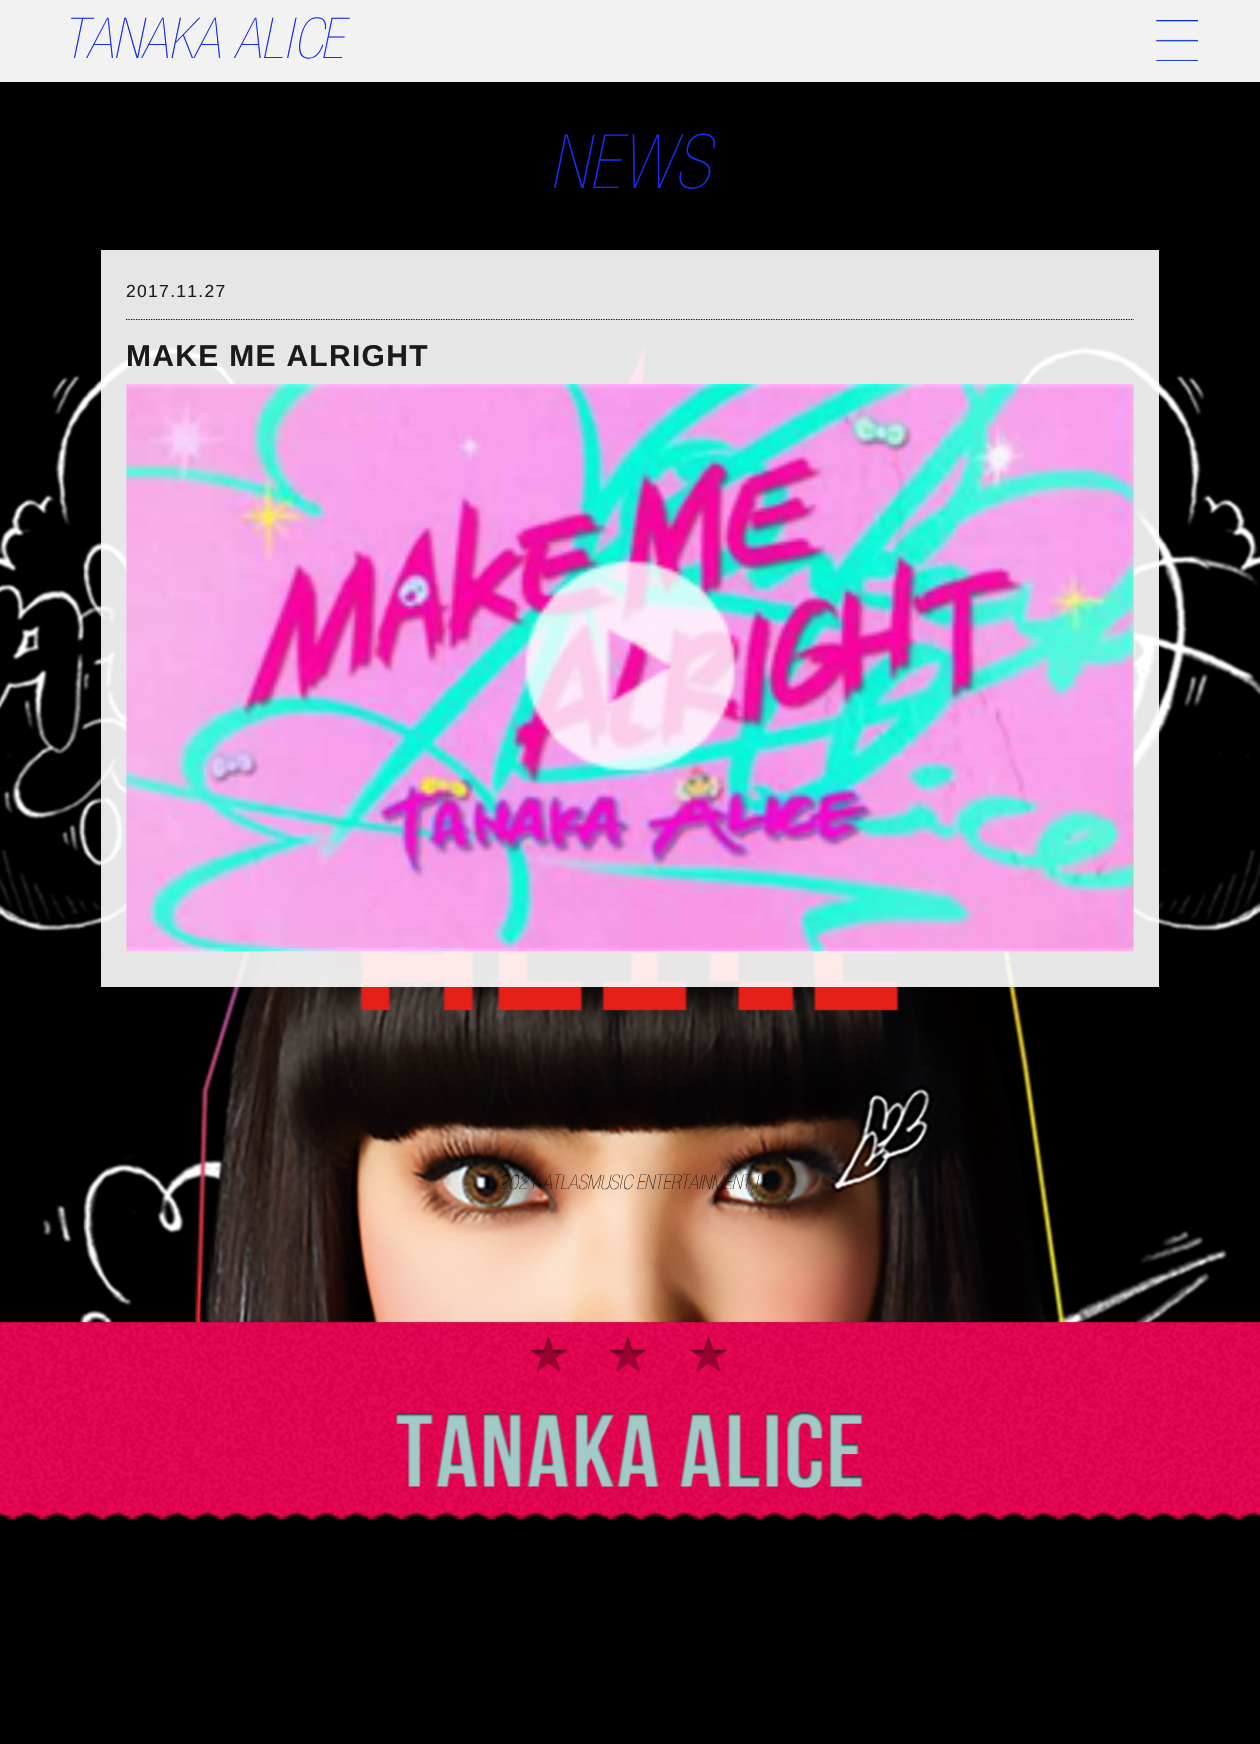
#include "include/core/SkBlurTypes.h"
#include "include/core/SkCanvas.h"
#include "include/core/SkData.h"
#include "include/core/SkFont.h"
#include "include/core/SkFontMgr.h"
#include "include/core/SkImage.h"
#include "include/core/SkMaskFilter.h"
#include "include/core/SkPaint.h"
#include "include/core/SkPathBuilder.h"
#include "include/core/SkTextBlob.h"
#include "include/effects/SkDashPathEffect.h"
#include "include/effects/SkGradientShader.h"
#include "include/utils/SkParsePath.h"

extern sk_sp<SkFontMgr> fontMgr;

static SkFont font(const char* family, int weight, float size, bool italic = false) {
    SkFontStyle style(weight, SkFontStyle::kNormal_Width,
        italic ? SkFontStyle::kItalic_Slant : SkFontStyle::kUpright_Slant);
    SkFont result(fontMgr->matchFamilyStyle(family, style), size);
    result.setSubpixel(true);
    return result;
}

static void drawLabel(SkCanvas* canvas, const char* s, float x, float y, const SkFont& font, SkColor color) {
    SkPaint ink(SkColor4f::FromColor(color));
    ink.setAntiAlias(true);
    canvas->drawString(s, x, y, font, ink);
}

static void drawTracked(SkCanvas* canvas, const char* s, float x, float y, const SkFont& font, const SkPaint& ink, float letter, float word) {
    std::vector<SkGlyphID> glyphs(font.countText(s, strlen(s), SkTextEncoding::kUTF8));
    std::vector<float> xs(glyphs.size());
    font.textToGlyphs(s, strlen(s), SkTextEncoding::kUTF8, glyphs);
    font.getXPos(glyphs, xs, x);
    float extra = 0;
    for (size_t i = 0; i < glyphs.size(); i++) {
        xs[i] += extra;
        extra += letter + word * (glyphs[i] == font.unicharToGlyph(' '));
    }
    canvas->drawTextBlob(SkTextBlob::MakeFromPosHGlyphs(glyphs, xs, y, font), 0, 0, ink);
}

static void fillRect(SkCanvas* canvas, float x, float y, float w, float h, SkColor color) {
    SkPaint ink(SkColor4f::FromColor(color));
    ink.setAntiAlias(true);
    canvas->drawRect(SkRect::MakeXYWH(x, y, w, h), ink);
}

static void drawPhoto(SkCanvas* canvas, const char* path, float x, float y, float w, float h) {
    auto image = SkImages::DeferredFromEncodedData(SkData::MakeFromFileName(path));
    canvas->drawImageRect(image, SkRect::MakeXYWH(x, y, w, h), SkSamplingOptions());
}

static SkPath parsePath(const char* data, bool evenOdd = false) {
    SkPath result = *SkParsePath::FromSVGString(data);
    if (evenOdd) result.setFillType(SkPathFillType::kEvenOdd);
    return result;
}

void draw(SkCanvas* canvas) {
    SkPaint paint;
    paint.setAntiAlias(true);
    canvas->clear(0xFFFFFFFF);
    fillRect(canvas, 0, 0, 1260, 82, 0xFFF2F2F2);
    SkFont font1 = font("Helvetica Neue", 300, 56.25f, true);
    drawLabel(canvas, "TANAKA ALICE", 63, 58, font1, 0xFF192BF3);
    drawPhoto(canvas, "assets/img1.png", 1156, 20, 42, 41);
    drawPhoto(canvas, "assets/img2.png", 0, 82, 1260, 1662);
    SkFont font2 = font("Helvetica Neue", 300, 75, true);
    paint.setColor(0xFF192BF3);
    drawTracked(canvas, "NEWS", 550, 188, font2, paint, 1.3f, 0);
    fillRect(canvas, 101, 250, 1058, 737, 0xE6FFFFFF);
    SkFont font3 = font("Liberation Sans", 400, 17.5f);
    paint.setColor(0xFF1B1B1B);
    drawTracked(canvas, "2017.11.27", 126, 297, font3, paint, 1.3f, 0);
    paint.setStroke(true);
    paint.setStrokeWidth(1.2f);
    paint.setColor(0xFF000000);
    paint.setPathEffect(SkDashPathEffect::Make({{1.25f, 1.25f}}, 0));
    canvas->drawPath(parsePath("M126 319.5H1134"), paint);
    paint.setPathEffect(nullptr);
    SkFont font4 = font("Liberation Sans", 700, 30);
    paint.setStroke(false);
    paint.setColor(0xFF1B1B1B);
    drawTracked(canvas, "MAKE ME ALRIGHT", 126, 366, font4, paint, 1.3f, 0);
    drawPhoto(canvas, "assets/img3.png", 126, 383, 1008, 569);
    SkFont font5 = font("Helvetica Neue", 300, 20, true);
    drawLabel(canvas, "2021 ATLASMUSIC ENTERTAINMENT,I", 499, 1189, font5, 0xFF000000);
}
